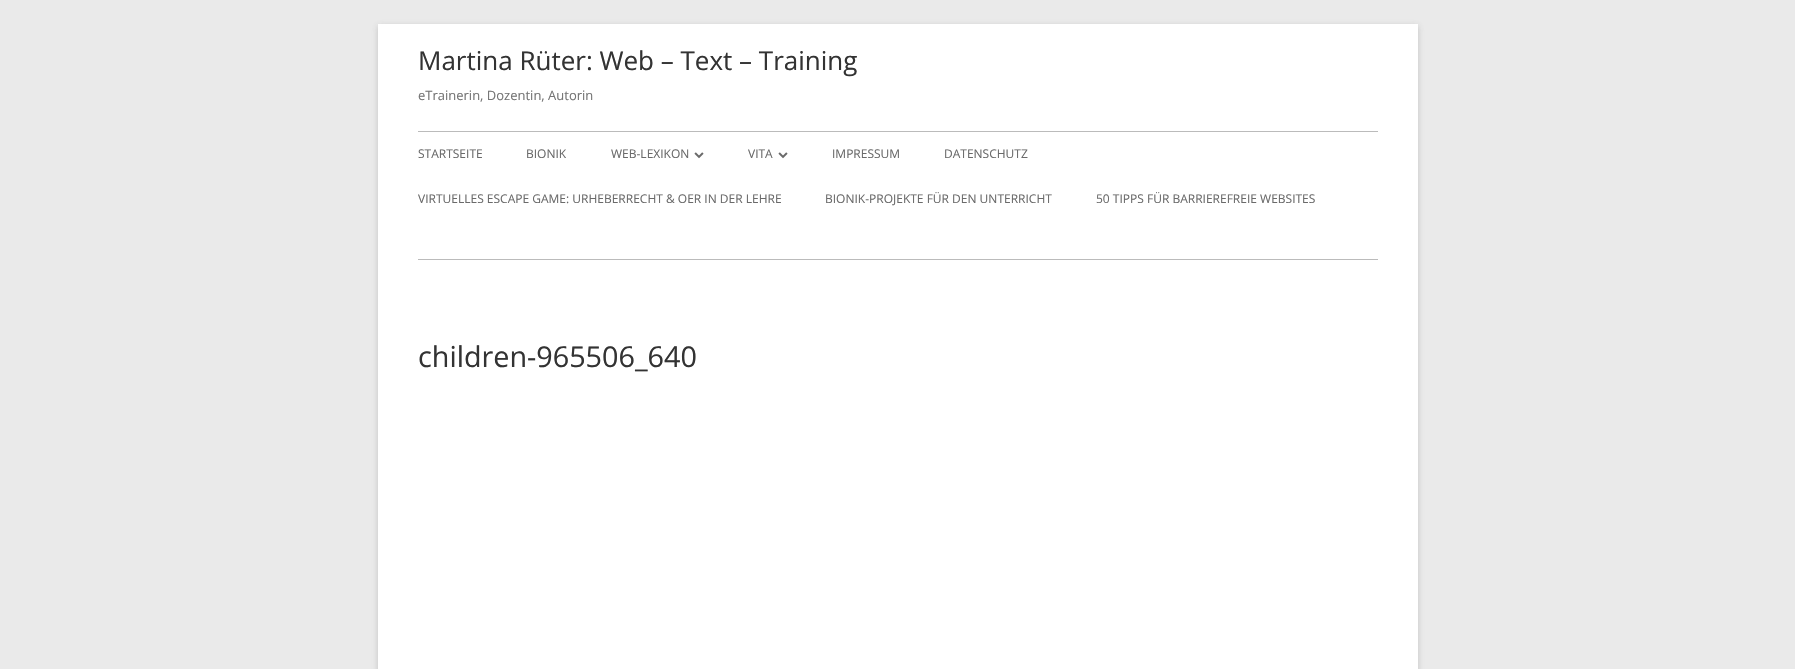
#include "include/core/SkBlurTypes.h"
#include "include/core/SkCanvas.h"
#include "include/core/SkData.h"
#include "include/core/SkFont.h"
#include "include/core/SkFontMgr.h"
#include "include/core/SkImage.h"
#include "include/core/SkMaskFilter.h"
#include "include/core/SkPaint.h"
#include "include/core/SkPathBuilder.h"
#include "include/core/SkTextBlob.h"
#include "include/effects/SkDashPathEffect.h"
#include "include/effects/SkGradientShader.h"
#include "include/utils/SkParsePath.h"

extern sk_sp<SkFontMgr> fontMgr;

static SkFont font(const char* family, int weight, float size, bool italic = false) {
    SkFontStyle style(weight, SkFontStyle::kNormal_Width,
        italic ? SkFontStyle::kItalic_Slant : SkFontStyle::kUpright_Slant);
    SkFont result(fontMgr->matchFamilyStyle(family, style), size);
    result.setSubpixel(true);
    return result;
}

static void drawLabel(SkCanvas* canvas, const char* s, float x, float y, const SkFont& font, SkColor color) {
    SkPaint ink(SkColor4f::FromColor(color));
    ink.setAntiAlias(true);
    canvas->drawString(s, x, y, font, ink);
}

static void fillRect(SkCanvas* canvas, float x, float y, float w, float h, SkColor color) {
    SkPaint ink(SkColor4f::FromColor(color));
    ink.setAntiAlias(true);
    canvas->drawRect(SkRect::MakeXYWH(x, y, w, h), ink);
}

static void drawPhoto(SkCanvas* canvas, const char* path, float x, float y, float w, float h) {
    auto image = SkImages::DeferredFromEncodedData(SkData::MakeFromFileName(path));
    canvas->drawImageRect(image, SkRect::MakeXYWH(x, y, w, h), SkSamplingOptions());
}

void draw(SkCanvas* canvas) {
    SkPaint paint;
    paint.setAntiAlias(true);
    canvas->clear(0xFFEAEAEA);
    paint.setColor(0x4D646464);
    paint.setMaskFilter(SkMaskFilter::MakeBlur(kNormal_SkBlurStyle, 3));
    canvas->drawRect(SkRect::MakeXYWH(378, 26, 1040, 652), paint);
    paint.setMaskFilter(nullptr);
    fillRect(canvas, 378, 24, 1040, 645, 0xFFFFFFFF);
    SkFont font1 = font("Open Sans", 400, 26);
    drawLabel(canvas, "Martina Rüter: Web – Text – Training", 418, 70, font1, 0xFF333333);
    SkFont font2 = font("Open Sans", 400, 13);
    drawLabel(canvas, "eTrainerin, Dozentin, Autorin", 418, 100, font2, 0xFF757575);
    fillRect(canvas, 418, 131, 960, 1, 0xFFBBBBBB);
    fillRect(canvas, 418, 259, 960, 1, 0xFFBBBBBB);
    SkFont font3 = font("Open Sans", 400, 12);
    drawLabel(canvas, "STARTSEITE", 418, 158, font3, 0xFF6A6A6A);
    drawLabel(canvas, "BIONIK", 526, 158, font3, 0xFF6A6A6A);
    drawLabel(canvas, "WEB-LEXIKON", 611, 158, font3, 0xFF6A6A6A);
    drawPhoto(canvas, "assets/img1.png", 694, 152, 10, 7);
    drawLabel(canvas, "VITA", 748, 158, font3, 0xFF6A6A6A);
    drawPhoto(canvas, "assets/img1.png", 778, 152, 10, 7);
    drawLabel(canvas, "IMPRESSUM", 832, 158, font3, 0xFF6A6A6A);
    drawLabel(canvas, "DATENSCHUTZ", 944, 158, font3, 0xFF6A6A6A);
    drawLabel(canvas, "VIRTUELLES ESCAPE GAME: URHEBERRECHT & OER IN DER LEHRE", 418, 203, font3, 0xFF6A6A6A);
    drawLabel(canvas, "BIONIK-PROJEKTE FÜR DEN UNTERRICHT", 825, 203, font3, 0xFF6A6A6A);
    drawLabel(canvas, "50 TIPPS FÜR BARRIEREFREIE WEBSITES", 1096, 203, font3, 0xFF6A6A6A);
    SkFont font4 = font("Open Sans", 400, 28.75f);
    drawLabel(canvas, "children-965506_640", 418, 367, font4, 0xFF333333);
}
